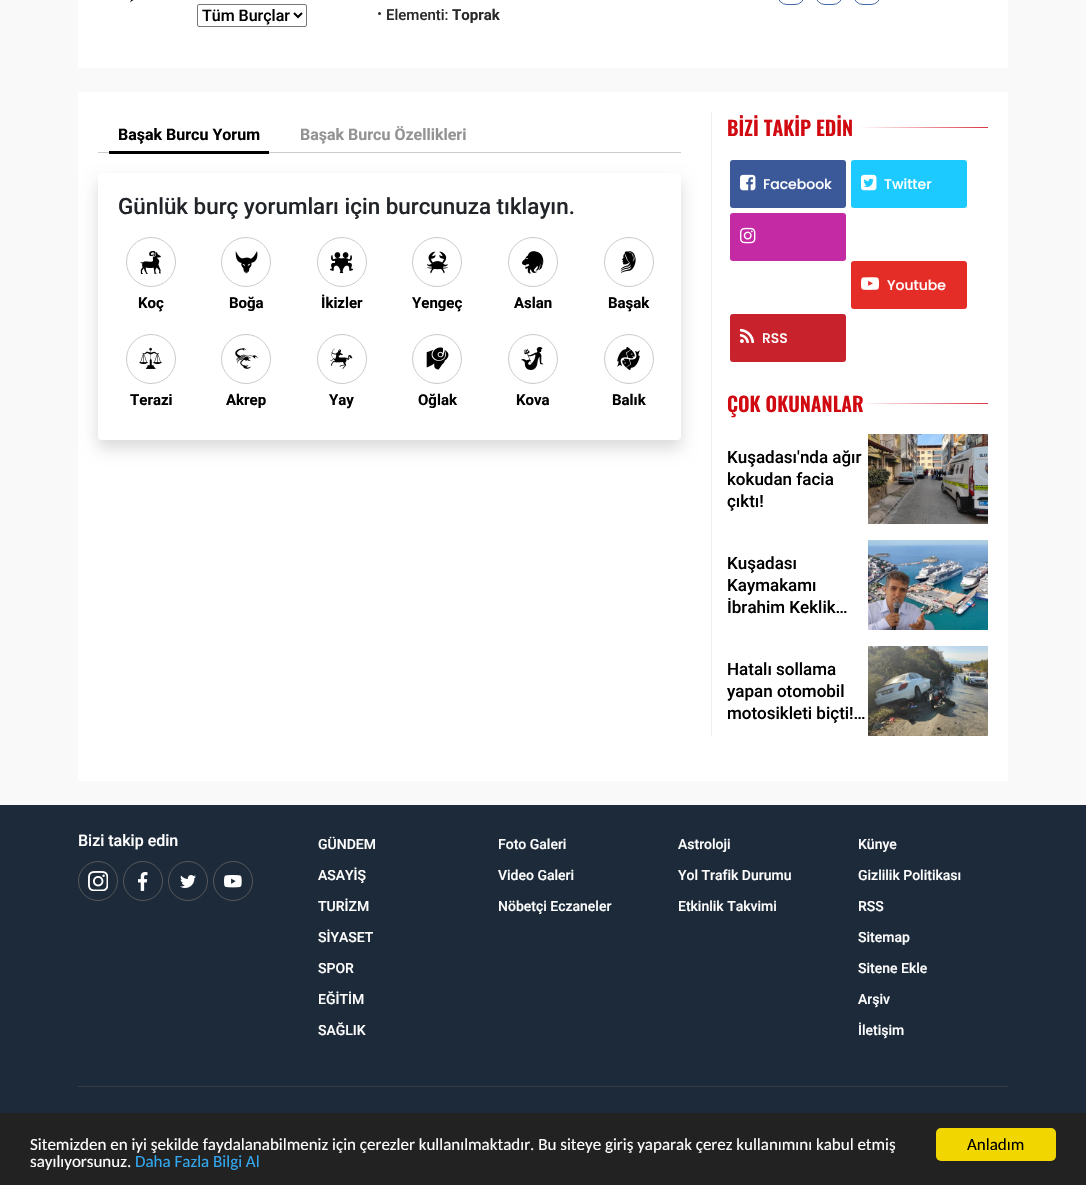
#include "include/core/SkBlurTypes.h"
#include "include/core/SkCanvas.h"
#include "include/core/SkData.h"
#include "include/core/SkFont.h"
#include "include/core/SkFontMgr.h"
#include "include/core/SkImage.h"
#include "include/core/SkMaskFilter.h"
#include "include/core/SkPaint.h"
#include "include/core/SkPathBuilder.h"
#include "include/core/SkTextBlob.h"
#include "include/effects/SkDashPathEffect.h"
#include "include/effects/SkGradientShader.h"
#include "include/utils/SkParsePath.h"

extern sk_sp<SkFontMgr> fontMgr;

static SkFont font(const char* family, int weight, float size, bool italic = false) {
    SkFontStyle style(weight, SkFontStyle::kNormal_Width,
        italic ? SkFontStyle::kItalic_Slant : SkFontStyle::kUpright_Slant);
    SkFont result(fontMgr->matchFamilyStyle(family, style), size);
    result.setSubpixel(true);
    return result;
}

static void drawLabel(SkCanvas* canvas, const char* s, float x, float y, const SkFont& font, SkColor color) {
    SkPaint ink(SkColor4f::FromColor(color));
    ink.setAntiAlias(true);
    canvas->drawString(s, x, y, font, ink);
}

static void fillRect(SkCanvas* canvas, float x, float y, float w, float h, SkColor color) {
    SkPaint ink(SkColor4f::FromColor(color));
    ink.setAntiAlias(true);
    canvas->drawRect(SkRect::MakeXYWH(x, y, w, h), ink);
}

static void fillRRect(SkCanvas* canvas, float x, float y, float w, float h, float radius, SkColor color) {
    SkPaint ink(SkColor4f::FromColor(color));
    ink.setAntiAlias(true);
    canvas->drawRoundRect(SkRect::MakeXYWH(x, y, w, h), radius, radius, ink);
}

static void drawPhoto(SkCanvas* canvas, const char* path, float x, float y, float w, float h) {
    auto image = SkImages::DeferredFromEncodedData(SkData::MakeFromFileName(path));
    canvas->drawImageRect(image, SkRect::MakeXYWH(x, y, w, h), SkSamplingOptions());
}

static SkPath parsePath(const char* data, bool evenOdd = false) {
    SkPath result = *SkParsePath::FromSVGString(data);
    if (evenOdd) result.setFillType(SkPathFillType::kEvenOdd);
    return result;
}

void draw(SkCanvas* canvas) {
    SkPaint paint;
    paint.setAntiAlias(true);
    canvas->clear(0xFFF9F9F9);
    fillRect(canvas, 78, 0, 930, 68, 0xFFFFFFFF);
    paint.setStroke(true);
    paint.setStrokeWidth(1);
    paint.setColor(0xFF4869A5);
    canvas->drawRoundRect(SkRect::MakeXYWH(777.5f, -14.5f, 27, 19), 13.5f, 13.5f, paint);
    canvas->drawRoundRect(SkRect::MakeXYWH(815.5f, -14.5f, 27, 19), 13.5f, 13.5f, paint);
    canvas->drawRoundRect(SkRect::MakeXYWH(853.5f, -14.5f, 27, 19), 13.5f, 13.5f, paint);
    drawPhoto(canvas, "assets/img1.png", 130, 0, 4, 3);
    paint.setColor(0xFF767676);
    canvas->drawRoundRect(SkRect::MakeXYWH(197.5f, 4.5f, 109, 22), 1.5f, 1.5f, paint);
    paint.setStrokeWidth(2);
    paint.setColor(0xFF000000);
    canvas->drawPath(parsePath("M294 13L298 17L302 13"), paint);
    SkFont font1 = font("Roboto", 500, 16);
    drawLabel(canvas, "Tüm Burçlar", 202, 21, font1, 0xFF000000);
    paint.setStroke(false);
    paint.setColor(0xFF2A2A2A);
    canvas->drawCircle(379.5f, 13.5f, 1.5f, paint);
    SkFont font2 = font("Roboto", 500, 15);
    drawLabel(canvas, "Elementi:", 386, 20, font2, 0xFF2A2A2A);
    SkFont font3 = font("Roboto", 700, 15);
    drawLabel(canvas, "Toprak", 452, 20, font3, 0xFF2A2A2A);
    fillRect(canvas, 78, 92, 930, 689, 0xFFFFFFFF);
    fillRect(canvas, 98, 152, 583, 1, 0xFFCCCCCC);
    fillRect(canvas, 109, 151, 160, 3, 0xFF000000);
    SkFont font4 = font("Roboto", 700, 16);
    drawLabel(canvas, "Başak Burcu Yorum", 118, 140, font4, 0xFF000000);
    drawLabel(canvas, "Başak Burcu Özellikleri", 300, 140, font4, 0xFF939393);
    paint.setColor(0x26000000);
    paint.setMaskFilter(SkMaskFilter::MakeBlur(kNormal_SkBlurStyle, 8));
    canvas->drawRoundRect(SkRect::MakeXYWH(98, 181, 583, 267), 4, 4, paint);
    paint.setMaskFilter(nullptr);
    fillRRect(canvas, 98, 173, 583, 267, 4, 0xFFFFFFFF);
    SkFont font5 = font("Roboto", 500, 22.4f);
    drawLabel(canvas, "Günlük burç yorumları için burcunuza tıklayın.", 118, 214, font5, 0xFF212529);
    paint.setStroke(true);
    paint.setStrokeWidth(1);
    paint.setColor(0xFFCBCBCB);
    canvas->drawCircle(151, 262, 24.5f, paint);
    drawPhoto(canvas, "assets/img2.png", 140, 251, 21, 23);
    drawLabel(canvas, "Koç", 138, 308, font3, 0xFF000000);
    canvas->drawCircle(246, 262, 24.5f, paint);
    drawPhoto(canvas, "assets/img3.png", 235, 251, 23, 23);
    drawLabel(canvas, "Boğa", 229, 308, font3, 0xFF000000);
    canvas->drawCircle(342, 262, 24.5f, paint);
    drawPhoto(canvas, "assets/img4.png", 330, 252, 23, 22);
    drawLabel(canvas, "İkizler", 321, 308, font3, 0xFF000000);
    canvas->drawCircle(437, 262, 24.5f, paint);
    drawPhoto(canvas, "assets/img5.png", 427, 251, 21, 23);
    drawLabel(canvas, "Yengeç", 412, 308, font3, 0xFF000000);
    canvas->drawCircle(533, 262, 24.5f, paint);
    drawPhoto(canvas, "assets/img6.png", 522, 251, 22, 23);
    drawLabel(canvas, "Aslan", 514, 308, font3, 0xFF000000);
    canvas->drawCircle(629, 262, 24.5f, paint);
    drawPhoto(canvas, "assets/img7.png", 620, 251, 16, 23);
    drawLabel(canvas, "Başak", 608, 308, font3, 0xFF000000);
    canvas->drawCircle(151, 359, 24.5f, paint);
    drawPhoto(canvas, "assets/img8.png", 139, 347, 23, 22);
    drawLabel(canvas, "Terazi", 130, 405, font3, 0xFF000000);
    canvas->drawCircle(246, 359, 24.5f, paint);
    drawPhoto(canvas, "assets/img9.png", 235, 348, 23, 21);
    drawLabel(canvas, "Akrep", 226, 405, font3, 0xFF000000);
    canvas->drawCircle(342, 359, 24.5f, paint);
    drawPhoto(canvas, "assets/img10.png", 330, 348, 23, 21);
    drawLabel(canvas, "Yay", 329, 405, font3, 0xFF000000);
    canvas->drawCircle(437, 359, 24.5f, paint);
    drawPhoto(canvas, "assets/img11.png", 426, 347, 23, 23);
    drawLabel(canvas, "Oğlak", 418, 405, font3, 0xFF000000);
    canvas->drawCircle(533, 359, 24.5f, paint);
    drawPhoto(canvas, "assets/img12.png", 521, 347, 23, 23);
    drawLabel(canvas, "Kova", 516, 405, font3, 0xFF000000);
    canvas->drawCircle(629, 359, 24.5f, paint);
    drawPhoto(canvas, "assets/img13.png", 617, 347, 23, 23);
    drawLabel(canvas, "Balık", 612, 405, font3, 0xFF000000);
    fillRect(canvas, 711, 112, 1, 624, 0xFFEEEEEE);
    SkFont font6 = font("Oswald", 600, 20);
    drawLabel(canvas, "BİZİ TAKİP EDİN", 727, 136, font6, 0xFFD10A11);
    paint.setStroke(false);
    {
        const SkColor colors[] = {0xFFDC3545, 0xFFFFFFFF};
        const float stops[] = {0, 1};
        const SkPoint ends[] = {{988, 127}, {858, 128}};
        paint.setShader(SkGradientShader::MakeLinear(ends, colors, stops, 2, SkTileMode::kClamp));
        paint.setAlpha(255);
    }
    canvas->drawRect(SkRect::MakeXYWH(858, 127, 130, 1), paint);
    fillRRect(canvas, 730, 160, 116, 48, 3, 0xFF3B5998);
    drawPhoto(canvas, "assets/img14.png", 740, 174, 16, 17);
    SkFont font7 = font("Poppins", 500, 14);
    drawLabel(canvas, "Facebook", 763, 189, font7, 0xFFFFFFFF);
    fillRRect(canvas, 851, 160, 116, 48, 3, 0xFF1DCAFF);
    drawPhoto(canvas, "assets/img15.png", 861, 174, 16, 17);
    drawLabel(canvas, "Twitter", 884, 189, font7, 0xFFFFFFFF);
    fillRRect(canvas, 730, 213, 116, 48, 3, 0xFFC32AA3);
    drawPhoto(canvas, "assets/img16.png", 740, 227, 16, 17);
    fillRRect(canvas, 851, 261, 116, 48, 3, 0xFFE52D27);
    drawPhoto(canvas, "assets/img17.png", 861, 277, 18, 13);
    drawLabel(canvas, "Youtube", 887, 290, font7, 0xFFFFFFFF);
    fillRRect(canvas, 730, 314, 116, 48, 3, 0xFFC8232C);
    drawPhoto(canvas, "assets/img18.png", 740, 328, 15, 15);
    drawLabel(canvas, "RSS", 762, 343, font7, 0xFFFFFFFF);
    drawLabel(canvas, "ÇOK OKUNANLAR", 727, 412, font6, 0xFFD10A11);
    {
        const SkColor colors[] = {0xFFDC3545, 0x00DC3545};
        const float stops[] = {0, 1};
        const SkPoint ends[] = {{988, 404}, {858, 404}};
        paint.setShader(SkGradientShader::MakeLinear(ends, colors, stops, 2, SkTileMode::kClamp));
        paint.setAlpha(255);
    }
    canvas->drawRect(SkRect::MakeXYWH(858, 403, 130, 1), paint);
    SkFont font8 = font("Roboto", 500, 17);
    drawLabel(canvas, "Kuşadası'nda ağır", 727, 463, font8, 0xFF000000);
    drawLabel(canvas, "kokudan facia", 727, 485, font8, 0xFF000000);
    drawLabel(canvas, "çıktı!", 727, 507, font8, 0xFF000000);
    drawPhoto(canvas, "assets/img19.png", 868, 434, 120, 90);
    drawLabel(canvas, "Kuşadası", 727, 569, font8, 0xFF000000);
    drawLabel(canvas, "Kaymakamı", 727, 591, font8, 0xFF000000);
    drawLabel(canvas, "İbrahim Keklik…", 727, 613, font8, 0xFF000000);
    drawPhoto(canvas, "assets/img20.png", 868, 540, 120, 90);
    drawLabel(canvas, "Hatalı sollama", 727, 675, font8, 0xFF000000);
    drawLabel(canvas, "yapan otomobil", 727, 697, font8, 0xFF000000);
    drawLabel(canvas, "motosikleti biçti!…", 727, 719, font8, 0xFF000000);
    drawPhoto(canvas, "assets/img21.png", 868, 646, 120, 90);
    fillRect(canvas, 0, 805, 1086, 308, 0xFF1C2A39);
    drawLabel(canvas, "Bizi takip edin", 78, 846, font1, 0xFFFFFFFF);
    paint.setStroke(true);
    paint.setShader(nullptr);
    paint.setColor(0xFF55575A);
    canvas->drawCircle(98, 881, 19.5f, paint);
    drawPhoto(canvas, "assets/img22.png", 88, 871, 20, 20);
    canvas->drawCircle(143, 881, 19.5f, paint);
    drawPhoto(canvas, "assets/img23.png", 138, 872, 10, 19);
    canvas->drawCircle(188, 881, 19.5f, paint);
    drawPhoto(canvas, "assets/img24.png", 180, 875, 16, 13);
    canvas->drawCircle(233, 881, 19.5f, paint);
    drawPhoto(canvas, "assets/img25.png", 224, 875, 18, 13);
    SkFont font9 = font("Roboto", 500, 14);
    drawLabel(canvas, "GÜNDEM", 318, 849, font9, 0xFFFFFFFF);
    drawLabel(canvas, "ASAYİŞ", 318, 880, font9, 0xFFFFFFFF);
    drawLabel(canvas, "TURİZM", 318, 911, font9, 0xFFFFFFFF);
    drawLabel(canvas, "SİYASET", 318, 942, font9, 0xFFFFFFFF);
    drawLabel(canvas, "SPOR", 318, 973, font9, 0xFFFFFFFF);
    drawLabel(canvas, "EĞİTİM", 318, 1004, font9, 0xFFFFFFFF);
    drawLabel(canvas, "SAĞLIK", 318, 1035, font9, 0xFFFFFFFF);
    drawLabel(canvas, "Foto Galeri", 498, 849, font9, 0xFFFFFFFF);
    drawLabel(canvas, "Video Galeri", 498, 880, font9, 0xFFFFFFFF);
    drawLabel(canvas, "Nöbetçi Eczaneler", 498, 911, font9, 0xFFFFFFFF);
    drawLabel(canvas, "Astroloji", 678, 849, font9, 0xFFFFFFFF);
    drawLabel(canvas, "Yol Trafik Durumu", 678, 880, font9, 0xFFFFFFFF);
    drawLabel(canvas, "Etkinlik Takvimi", 678, 911, font9, 0xFFFFFFFF);
    drawLabel(canvas, "Künye", 858, 849, font9, 0xFFFFFFFF);
    drawLabel(canvas, "Gizlilik Politikası", 858, 880, font9, 0xFFFFFFFF);
    drawLabel(canvas, "RSS", 858, 911, font9, 0xFFFFFFFF);
    drawLabel(canvas, "Sitemap", 858, 942, font9, 0xFFFFFFFF);
    drawLabel(canvas, "Sitene Ekle", 858, 973, font9, 0xFFFFFFFF);
    drawLabel(canvas, "Arşiv", 858, 1004, font9, 0xFFFFFFFF);
    drawLabel(canvas, "İletişim", 858, 1035, font9, 0xFFFFFFFF);
    fillRect(canvas, 78, 1086, 930, 1, 0xFF353C45);
    fillRect(canvas, 0, 1113, 1086, 72, 0xFF222222);
    SkFont font10 = font("Carlito", 400, 17);
    drawLabel(canvas, "Sitemizden en iyi şekilde faydalanabilmeniz için çerezler kullanılmaktadır. Bu siteye giriş yaparak çerez kullanımını kabul etmiş", 30, 1150, font10, 0xFFFFFFFF);
    drawLabel(canvas, "sayılıyorsunuz.", 30, 1167, font10, 0xFFFFFFFF);
    drawLabel(canvas, "Daha Fazla Bilgi Al", 135, 1167, font10, 0xFF31A8F0);
    fillRRect(canvas, 936, 1128, 120, 33, 5, 0xFFF1D600);
    drawLabel(canvas, "Anladım", 967, 1150, font10, 0xFF000000);
}
